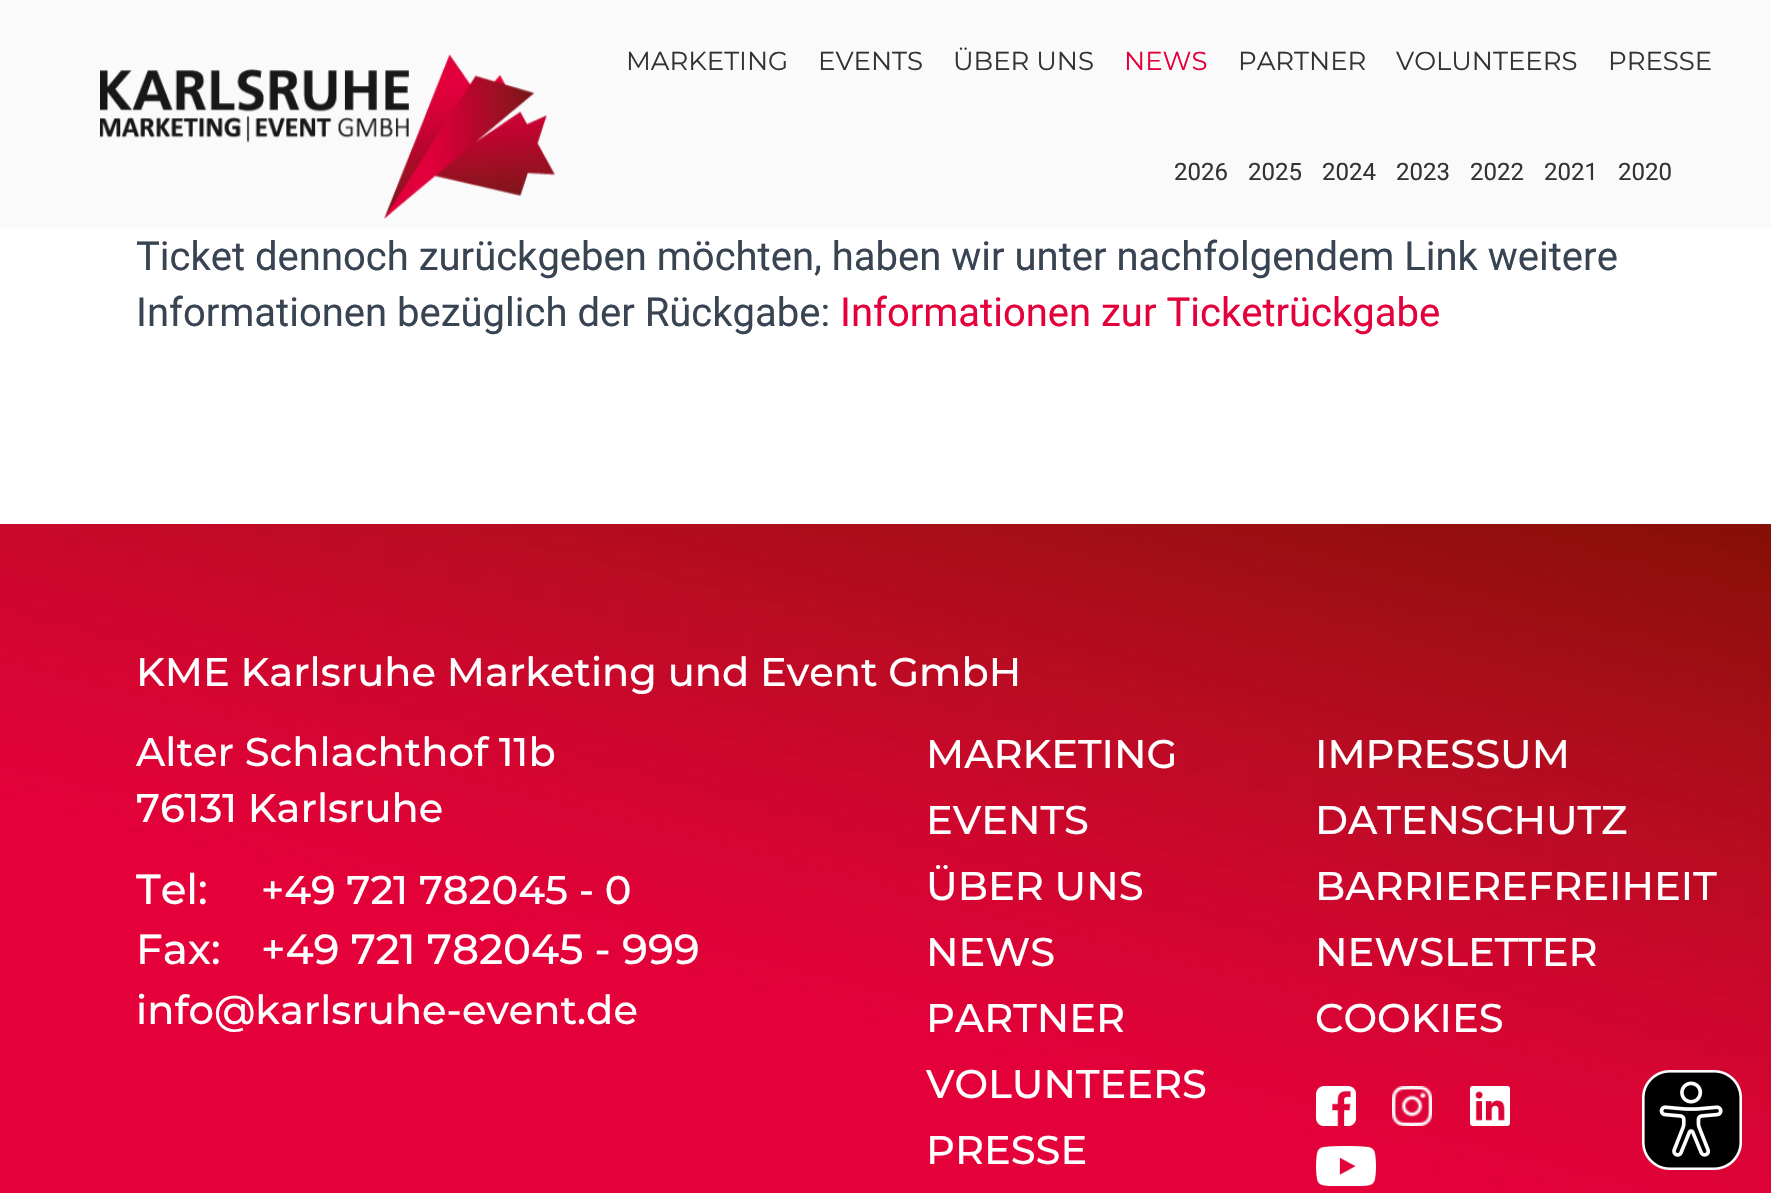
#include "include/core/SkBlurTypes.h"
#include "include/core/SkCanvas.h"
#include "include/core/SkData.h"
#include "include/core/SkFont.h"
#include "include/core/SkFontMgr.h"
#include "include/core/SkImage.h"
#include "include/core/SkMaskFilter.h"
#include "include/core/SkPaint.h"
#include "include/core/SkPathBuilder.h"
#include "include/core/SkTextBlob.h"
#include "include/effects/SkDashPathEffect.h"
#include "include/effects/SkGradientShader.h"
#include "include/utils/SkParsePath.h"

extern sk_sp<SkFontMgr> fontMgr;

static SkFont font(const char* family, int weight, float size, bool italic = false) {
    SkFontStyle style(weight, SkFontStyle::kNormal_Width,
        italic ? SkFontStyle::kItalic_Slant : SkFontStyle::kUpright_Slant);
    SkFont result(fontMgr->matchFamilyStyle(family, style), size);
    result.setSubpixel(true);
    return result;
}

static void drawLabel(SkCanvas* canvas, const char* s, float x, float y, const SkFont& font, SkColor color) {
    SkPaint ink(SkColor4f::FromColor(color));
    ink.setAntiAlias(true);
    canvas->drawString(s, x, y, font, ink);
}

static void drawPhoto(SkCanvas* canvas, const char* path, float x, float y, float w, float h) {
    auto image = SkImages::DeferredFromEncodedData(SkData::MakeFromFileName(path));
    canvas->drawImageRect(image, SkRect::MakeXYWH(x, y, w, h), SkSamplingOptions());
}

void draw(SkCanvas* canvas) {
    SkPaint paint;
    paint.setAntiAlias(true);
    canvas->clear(0xFFFFFFFF);
    {
        const SkColor colors[] = {0xF2FAFAFA, 0x00FAFAFA};
        const float stops[] = {0.97f, 0.99f};
        const SkPoint ends[] = {{886, 0}, {886, 234}};
        paint.setShader(SkGradientShader::MakeLinear(ends, colors, stops, 2, SkTileMode::kClamp));
        paint.setAlpha(255);
    }
    canvas->drawRect(SkRect::MakeXYWH(0, 0, 1771, 229), paint);
    drawPhoto(canvas, "assets/img1.png", 100, 54, 455, 165);
    SkFont font1 = font("Montserrat", 400, 26);
    drawLabel(canvas, "MARKETING", 626, 70, font1, 0xFF333333);
    drawLabel(canvas, "EVENTS", 818, 70, font1, 0xFF333333);
    drawLabel(canvas, "ÜBER UNS", 953, 70, font1, 0xFF333333);
    drawLabel(canvas, "NEWS", 1124, 70, font1, 0xFFE4003A);
    drawLabel(canvas, "PARTNER", 1238, 70, font1, 0xFF333333);
    drawLabel(canvas, "VOLUNTEERS", 1396, 70, font1, 0xFF333333);
    drawLabel(canvas, "PRESSE", 1608, 70, font1, 0xFF333333);
    SkFont font2 = font("Roboto", 400, 24);
    drawLabel(canvas, "2026", 1174, 180, font2, 0xFF333333);
    drawLabel(canvas, "2025", 1248, 180, font2, 0xFF333333);
    drawLabel(canvas, "2024", 1322, 180, font2, 0xFF333333);
    drawLabel(canvas, "2023", 1396, 180, font2, 0xFF333333);
    drawLabel(canvas, "2022", 1470, 180, font2, 0xFF333333);
    drawLabel(canvas, "2021", 1544, 180, font2, 0xFF333333);
    drawLabel(canvas, "2020", 1618, 180, font2, 0xFF333333);
    SkFont font3 = font("Roboto", 400, 40);
    drawLabel(canvas, "Ticket dennoch zurückgeben möchten, haben wir unter nachfolgendem Link weitere", 136, 270, font3, 0xFF384452);
    drawLabel(canvas, "Informationen bezüglich der Rückgabe:", 136, 326, font3, 0xFF384452);
    drawLabel(canvas, "Informationen zur Ticketrückgabe", 840, 326, font3, 0xFFE4003A);
    drawPhoto(canvas, "assets/img2.png", 0, 524, 1771, 669);
    SkFont font4 = font("Montserrat", 500, 40);
    drawLabel(canvas, "KME Karlsruhe Marketing und Event GmbH", 136, 686, font4, 0xFFFFFFFF);
    drawLabel(canvas, "Alter Schlachthof 11b", 136, 766, font4, 0xFFFFFFFF);
    drawLabel(canvas, "76131 Karlsruhe", 136, 822, font4, 0xFFFFFFFF);
    SkFont font5 = font("Montserrat", 500, 42);
    drawLabel(canvas, "Tel:", 136, 904, font5, 0xFFFFFFFF);
    drawLabel(canvas, "+49 721 782045 - 0", 261, 904, font4, 0xFFFFFFFF);
    drawLabel(canvas, "Fax:", 136, 964, font5, 0xFFFFFFFF);
    drawLabel(canvas, "+49 721 782045 - 999", 261, 964, font5, 0xFFFFFFFF);
    drawLabel(canvas, "info@karlsruhe-event.de", 136, 1024, font4, 0xFFFFFFFF);
    drawLabel(canvas, "MARKETING", 926, 768, font4, 0xFFFFFFFF);
    drawLabel(canvas, "IMPRESSUM", 1315, 768, font4, 0xFFFFFFFF);
    drawLabel(canvas, "EVENTS", 926, 834, font4, 0xFFFFFFFF);
    drawLabel(canvas, "DATENSCHUTZ", 1315, 834, font4, 0xFFFFFFFF);
    drawLabel(canvas, "ÜBER UNS", 926, 900, font4, 0xFFFFFFFF);
    drawLabel(canvas, "BARRIEREFREIHEIT", 1315, 900, font4, 0xFFFFFFFF);
    drawLabel(canvas, "NEWS", 926, 966, font4, 0xFFFFFFFF);
    drawLabel(canvas, "NEWSLETTER", 1315, 966, font4, 0xFFFFFFFF);
    drawLabel(canvas, "PARTNER", 926, 1032, font4, 0xFFFFFFFF);
    drawLabel(canvas, "COOKIES", 1315, 1032, font4, 0xFFFFFFFF);
    drawLabel(canvas, "VOLUNTEERS", 926, 1098, font4, 0xFFFFFFFF);
    drawLabel(canvas, "PRESSE", 926, 1164, font4, 0xFFFFFFFF);
    drawPhoto(canvas, "assets/img3.png", 1316, 1086, 40, 40);
    drawPhoto(canvas, "assets/img4.png", 1392, 1086, 40, 40);
    drawPhoto(canvas, "assets/img5.png", 1470, 1086, 40, 40);
    drawPhoto(canvas, "assets/img6.png", 1316, 1146, 60, 40);
    drawPhoto(canvas, "assets/img7.png", 1642, 1070, 100, 100);
}
